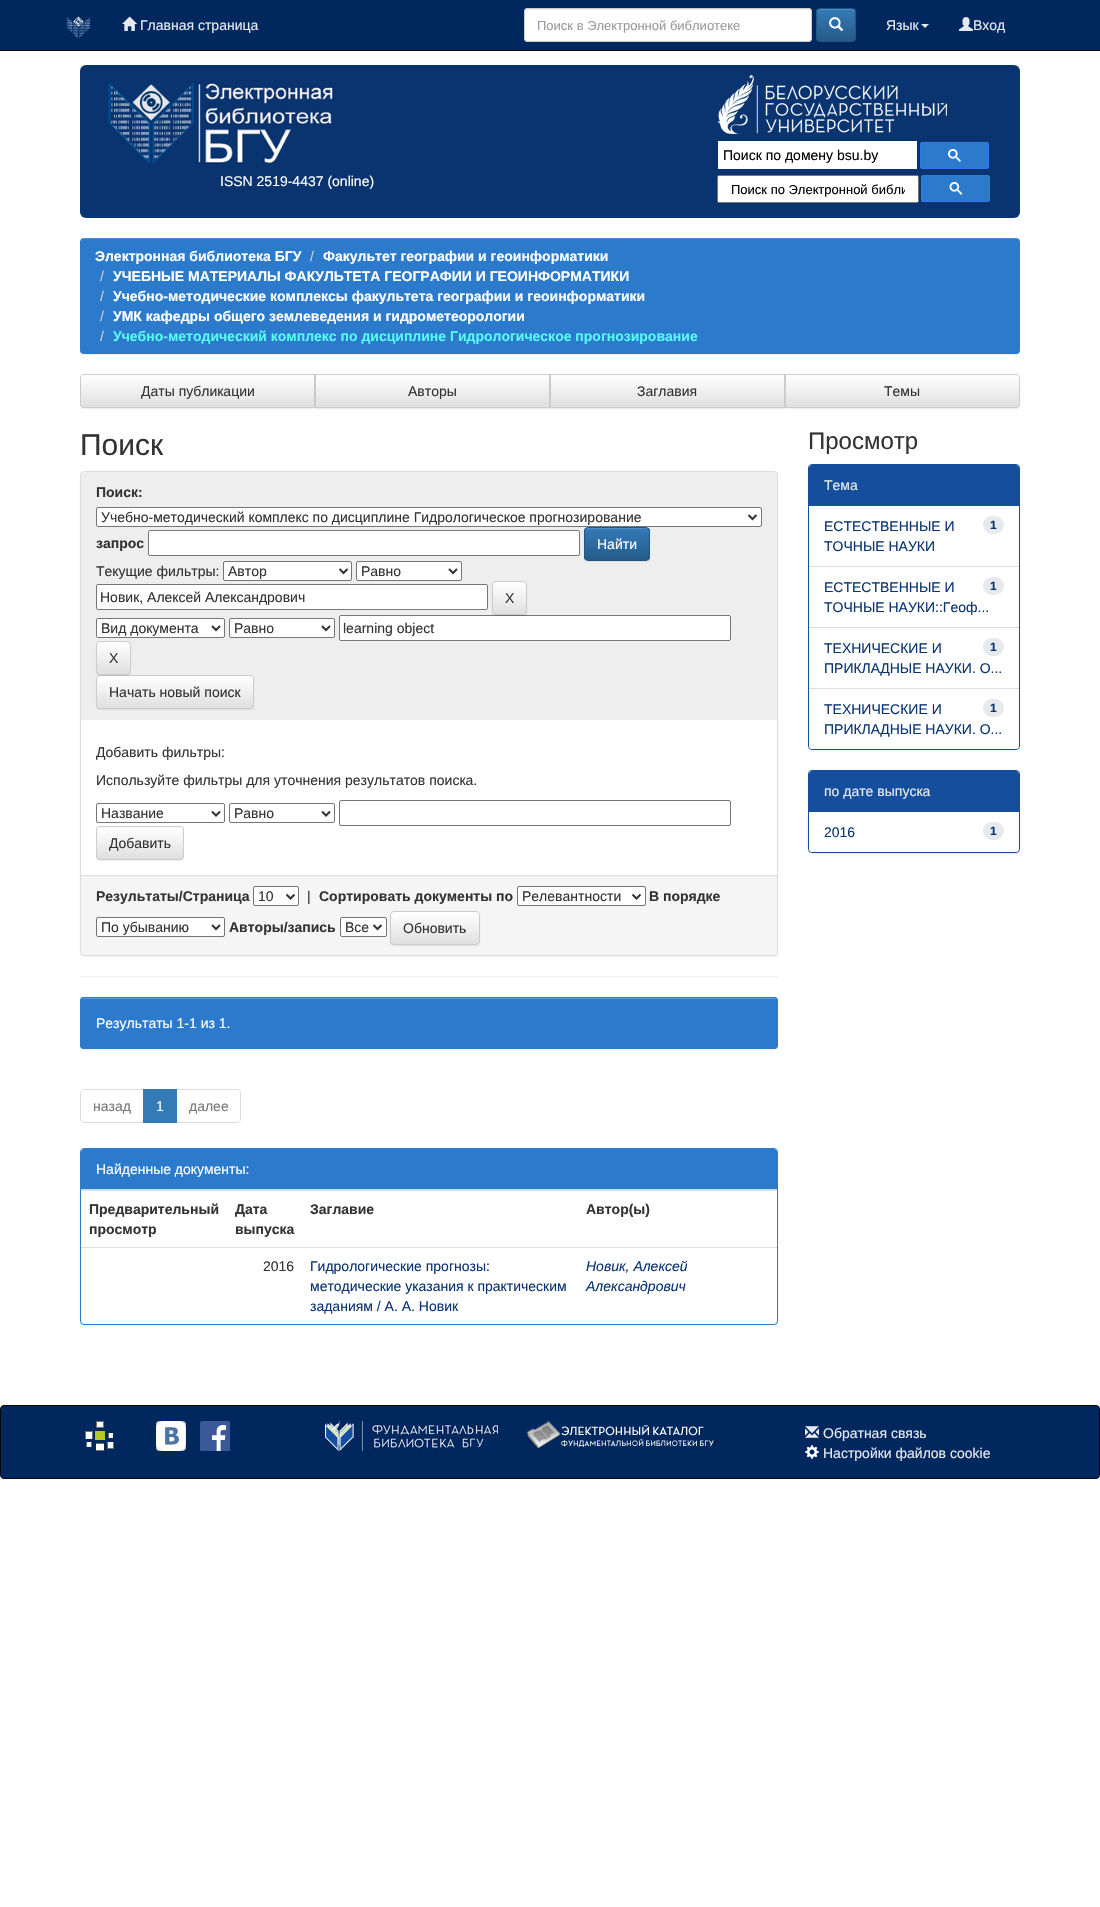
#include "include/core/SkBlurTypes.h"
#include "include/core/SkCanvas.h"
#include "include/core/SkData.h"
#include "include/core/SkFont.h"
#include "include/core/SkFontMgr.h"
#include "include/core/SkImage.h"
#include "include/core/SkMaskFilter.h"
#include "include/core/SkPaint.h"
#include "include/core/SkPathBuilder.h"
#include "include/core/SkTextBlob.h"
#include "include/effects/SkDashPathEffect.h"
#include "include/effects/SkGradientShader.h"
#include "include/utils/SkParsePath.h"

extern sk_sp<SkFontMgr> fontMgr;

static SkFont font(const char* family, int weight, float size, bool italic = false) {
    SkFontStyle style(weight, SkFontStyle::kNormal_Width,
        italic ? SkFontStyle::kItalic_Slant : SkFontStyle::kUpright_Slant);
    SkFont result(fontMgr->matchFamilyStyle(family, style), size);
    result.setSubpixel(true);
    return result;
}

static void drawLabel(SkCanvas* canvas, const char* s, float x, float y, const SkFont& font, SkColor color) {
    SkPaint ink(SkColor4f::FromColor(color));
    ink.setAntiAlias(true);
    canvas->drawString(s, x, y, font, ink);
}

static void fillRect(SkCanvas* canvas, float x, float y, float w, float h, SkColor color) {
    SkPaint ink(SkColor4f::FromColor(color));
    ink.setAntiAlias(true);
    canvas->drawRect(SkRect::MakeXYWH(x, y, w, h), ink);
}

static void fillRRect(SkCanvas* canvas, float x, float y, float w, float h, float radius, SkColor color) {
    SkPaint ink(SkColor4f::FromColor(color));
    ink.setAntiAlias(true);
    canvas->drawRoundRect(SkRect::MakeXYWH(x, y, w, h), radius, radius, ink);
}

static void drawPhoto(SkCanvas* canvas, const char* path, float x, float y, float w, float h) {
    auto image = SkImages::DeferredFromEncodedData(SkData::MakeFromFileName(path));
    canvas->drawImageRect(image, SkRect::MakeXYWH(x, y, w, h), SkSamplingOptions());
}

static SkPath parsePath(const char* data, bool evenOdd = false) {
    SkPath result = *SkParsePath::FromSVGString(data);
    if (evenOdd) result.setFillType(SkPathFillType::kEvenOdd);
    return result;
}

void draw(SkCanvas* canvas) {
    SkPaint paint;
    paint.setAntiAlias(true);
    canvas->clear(0xFFFFFFFF);
    fillRect(canvas, 0, 0, 1100, 50, 0xFF00285F);
    fillRect(canvas, 0, 50, 1100, 1, 0xFF080808);
    drawPhoto(canvas, "assets/img1.png", 66, 16, 25, 22);
    drawPhoto(canvas, "assets/img2.png", 122, 16, 15, 15);
    SkFont font1 = font("Liberation Sans", 400, 14);
    drawLabel(canvas, "Главная страница", 140, 30, font1, 0xFFE6E9ED);
    fillRRect(canvas, 524, 8, 288, 34, 4, 0xFFFFFFFF);
    paint.setColor(0xFFECECEC);
    canvas->drawPath(parsePath("M528 10H808C810 10 811 11 811 13C811 11 810 9 808 9H528C526 9 525 11 525 13C525 11 526 10 528 10Z"), paint);
    paint.setStroke(true);
    paint.setStrokeWidth(1);
    paint.setColor(0xFFCCCCCC);
    canvas->drawRoundRect(SkRect::MakeXYWH(524.5f, 8.5f, 287, 33), 3.5f, 3.5f, paint);
    SkFont font2 = font("Liberation Sans", 400, 13);
    drawLabel(canvas, "Поиск в Электронной библиотеке", 537, 30, font2, 0xFF999999);
    canvas->save();
    canvas->clipPath(parsePath("M820 8H852C854 8 856 10 856 12V38C856 40 854 42 852 42H820C818 42 816 40 816 38V12C816 10 818 8 820 8Z"), true);
    paint.setStroke(false);
    {
        const SkColor colors[] = {0xFF337AB7, 0xFF265A88};
        const float stops[] = {0, 1};
        const SkPoint ends[] = {{836, 9}, {836, 41}};
        paint.setShader(SkGradientShader::MakeLinear(ends, colors, stops, 2, SkTileMode::kClamp));
        paint.setAlpha(255);
    }
    canvas->drawRect(SkRect::MakeXYWH(816, 9, 40, 32), paint);
    canvas->restore();
    paint.setShader(nullptr);
    paint.setColor(0xFF528EC1);
    canvas->drawPath(parsePath("M820 10H847C852.5 10 854.5 10.5 855 12.5C855 7.5 850.5 9 846.5 9H825.5C822 9 817 8 817 12.5C817.5 11 818.5 10 820 10Z"), paint);
    paint.setStroke(true);
    paint.setColor(0xFF245580);
    canvas->drawRoundRect(SkRect::MakeXYWH(816.5f, 8.5f, 39, 33), 3.5f, 3.5f, paint);
    drawPhoto(canvas, "assets/img3.png", 829, 17, 15, 14);
    drawLabel(canvas, "Язык", 886, 30, font1, 0xFFE6E9ED);
    paint.setStroke(false);
    paint.setColor(0xFFE6E9ED);
    canvas->drawPath(parsePath("M921 24H929L925 28Z"), paint);
    drawPhoto(canvas, "assets/img4.png", 959, 17, 14, 14);
    drawLabel(canvas, "Вход", 973, 30, font1, 0xFFE6E9ED);
    fillRRect(canvas, 80, 65, 940, 153, 6, 0xFF0A3470);
    drawPhoto(canvas, "assets/img5.png", 108, 82, 226, 82);
    drawLabel(canvas, "ISSN 2519-4437 (online)", 220, 186, font1, 0xFFFFFFFF);
    drawPhoto(canvas, "assets/img6.png", 717, 75, 230, 59);
    fillRect(canvas, 718, 141, 199, 28, 0xFFFFFFFF);
    drawLabel(canvas, "Поиск по домену bsu.by", 723, 160, font1, 0xFF000000);
    paint.setColor(0xFF2B7ACC);
    canvas->drawRoundRect(SkRect::MakeXYWH(920.5f, 142.5f, 68, 26), 1.5f, 1.5f, paint);
    paint.setStroke(true);
    paint.setColor(0xFF3079ED);
    canvas->drawRoundRect(SkRect::MakeXYWH(920.5f, 142.5f, 68, 26), 1.5f, 1.5f, paint);
    drawPhoto(canvas, "assets/img7.png", 948, 149, 13, 13);
    paint.setStroke(false);
    paint.setColor(0xFFFFFFFF);
    canvas->drawRoundRect(SkRect::MakeXYWH(717.5f, 175.5f, 201, 27), 1.5f, 1.5f, paint);
    paint.setStroke(true);
    paint.setColor(0xFF767676);
    canvas->drawRoundRect(SkRect::MakeXYWH(717.5f, 175.5f, 201, 27), 1.5f, 1.5f, paint);
    canvas->save();
    canvas->clipRect(SkRect::MakeXYWH(731, 182, 174, 15));
    drawLabel(canvas, "Поиск по Электронной библи", 731, 194, font2, 0xFF000000);
    canvas->restore();
    paint.setStroke(false);
    paint.setColor(0xFF2B7ACC);
    canvas->drawRoundRect(SkRect::MakeXYWH(921.5f, 175.5f, 68, 26), 1.5f, 1.5f, paint);
    paint.setStroke(true);
    paint.setColor(0xFF3079ED);
    canvas->drawRoundRect(SkRect::MakeXYWH(921.5f, 175.5f, 68, 26), 1.5f, 1.5f, paint);
    drawPhoto(canvas, "assets/img8.png", 949, 182, 14, 13);
    paint.setStroke(false);
    paint.setColor(0x12000000);
    paint.setMaskFilter(SkMaskFilter::MakeBlur(kNormal_SkBlurStyle, 0.5f));
    canvas->drawRoundRect(SkRect::MakeXYWH(80, 239, 940, 116), 4, 4, paint);
    paint.setMaskFilter(nullptr);
    fillRRect(canvas, 80, 238, 940, 116, 4, 0xFF2B7ACC);
    paint.setColor(0x26FFFFFF);
    canvas->drawPath(parsePath("M84 239H1016C1018 239 1020 241 1020 243C1020 240 1019 238 1016 238H84C81 238 80 240 80 243C80 241 82 239 84 239Z"), paint);
    SkFont font3 = font("Liberation Sans", 700, 14);
    drawLabel(canvas, "Электронная библиотека БГУ", 95, 261, font3, 0xFFFFFFFF);
    drawLabel(canvas, "/", 310, 261, font1, 0xFFCCCCCC);
    drawLabel(canvas, "Факультет географии и геоинформатики", 323, 261, font3, 0xFFFFFFFF);
    drawLabel(canvas, "/", 100, 281, font1, 0xFFCCCCCC);
    drawLabel(canvas, "УЧЕБНЫЕ МАТЕРИАЛЫ ФАКУЛЬТЕТА ГЕОГРАФИИ И ГЕОИНФОРМАТИКИ", 113, 281, font3, 0xFFFFFFFF);
    drawLabel(canvas, "/", 100, 301, font1, 0xFFCCCCCC);
    drawLabel(canvas, "Учебно-методические комплексы факультета географии и геоинформатики", 113, 301, font3, 0xFFFFFFFF);
    drawLabel(canvas, "/", 100, 321, font1, 0xFFCCCCCC);
    drawLabel(canvas, "УМК кафедры общего землеведения и гидрометеорологии", 113, 321, font3, 0xFFFFFFFF);
    drawLabel(canvas, "/", 100, 341, font1, 0xFFCCCCCC);
    drawLabel(canvas, "Учебно-методический комплекс по дисциплине Гидрологическое прогнозирование", 113, 341, font3, 0xFF58FAF4);
    paint.setColor(0x12000000);
    paint.setMaskFilter(SkMaskFilter::MakeBlur(kNormal_SkBlurStyle, 0.5f));
    canvas->drawRoundRect(SkRect::MakeXYWH(80, 375, 235, 34), 4, 4, paint);
    paint.setMaskFilter(nullptr);
    canvas->save();
    canvas->clipPath(parsePath("M84 374H315V408H84C82 408 80 406 80 404V378C80 376 82 374 84 374Z"), true);
    {
        const SkColor colors[] = {0xFFFFFFFF, 0xFFE0E0E0};
        const float stops[] = {0, 1};
        const SkPoint ends[] = {{198, 375}, {198, 407}};
        paint.setShader(SkGradientShader::MakeLinear(ends, colors, stops, 2, SkTileMode::kClamp));
        paint.setAlpha(255);
    }
    canvas->drawRect(SkRect::MakeXYWH(80, 375, 234, 32), paint);
    canvas->restore();
    paint.setStroke(true);
    paint.setShader(nullptr);
    paint.setColor(0xFFCCCCCC);
    canvas->drawPath(parsePath("M84 374.5H314.5V407.5H84C82 407.5 80.5 406 80.5 404V378C80.5 376 82 374.5 84 374.5Z"), paint);
    drawLabel(canvas, "Даты публикации", 141, 396, font1, 0xFF333333);
    paint.setStroke(false);
    paint.setColor(0x12000000);
    paint.setMaskFilter(SkMaskFilter::MakeBlur(kNormal_SkBlurStyle, 0.5f));
    canvas->drawRect(SkRect::MakeXYWH(315, 375, 235, 34), paint);
    paint.setMaskFilter(nullptr);
    {
        const SkColor colors[] = {0xFFFFFFFF, 0xFFE0E0E0};
        const float stops[] = {0, 1};
        const SkPoint ends[] = {{433, 375}, {433, 407}};
        paint.setShader(SkGradientShader::MakeLinear(ends, colors, stops, 2, SkTileMode::kClamp));
        paint.setAlpha(255);
    }
    canvas->drawRect(SkRect::MakeXYWH(316, 375, 233, 32), paint);
    paint.setStroke(true);
    paint.setShader(nullptr);
    paint.setColor(0xFFCCCCCC);
    canvas->drawRect(SkRect::MakeXYWH(315.5f, 374.5f, 234, 33), paint);
    drawLabel(canvas, "Авторы", 408, 396, font1, 0xFF333333);
    paint.setStroke(false);
    paint.setColor(0x12000000);
    paint.setMaskFilter(SkMaskFilter::MakeBlur(kNormal_SkBlurStyle, 0.5f));
    canvas->drawRect(SkRect::MakeXYWH(550, 375, 235, 34), paint);
    paint.setMaskFilter(nullptr);
    {
        const SkColor colors[] = {0xFFFFFFFF, 0xFFE0E0E0};
        const float stops[] = {0, 1};
        const SkPoint ends[] = {{668, 375}, {668, 407}};
        paint.setShader(SkGradientShader::MakeLinear(ends, colors, stops, 2, SkTileMode::kClamp));
        paint.setAlpha(255);
    }
    canvas->drawRect(SkRect::MakeXYWH(551, 375, 233, 32), paint);
    paint.setStroke(true);
    paint.setShader(nullptr);
    paint.setColor(0xFFCCCCCC);
    canvas->drawRect(SkRect::MakeXYWH(550.5f, 374.5f, 234, 33), paint);
    drawLabel(canvas, "Заглавия", 637, 396, font1, 0xFF333333);
    paint.setStroke(false);
    paint.setColor(0x12000000);
    paint.setMaskFilter(SkMaskFilter::MakeBlur(kNormal_SkBlurStyle, 0.5f));
    canvas->drawRoundRect(SkRect::MakeXYWH(785, 375, 235, 34), 4, 4, paint);
    paint.setMaskFilter(nullptr);
    canvas->save();
    canvas->clipPath(parsePath("M785 374H1016C1018 374 1020 376 1020 378V404C1020 406 1018 408 1016 408H785Z"), true);
    {
        const SkColor colors[] = {0xFFFFFFFF, 0xFFE0E0E0};
        const float stops[] = {0, 1};
        const SkPoint ends[] = {{903, 375}, {903, 407}};
        paint.setShader(SkGradientShader::MakeLinear(ends, colors, stops, 2, SkTileMode::kClamp));
        paint.setAlpha(255);
    }
    canvas->drawRect(SkRect::MakeXYWH(786, 375, 234, 32), paint);
    canvas->restore();
    paint.setStroke(true);
    paint.setShader(nullptr);
    paint.setColor(0xFFCCCCCC);
    canvas->drawPath(parsePath("M785.5 374.5H1016C1018 374.5 1019.5 376 1019.5 378V404C1019.5 406 1018 407.5 1016 407.5H785.5Z"), paint);
    drawLabel(canvas, "Темы", 884, 396, font1, 0xFF333333);
    SkFont font4 = font("Liberation Sans", 400, 30);
    drawLabel(canvas, "Поиск", 80, 455, font4, 0xFF333333);
    paint.setStroke(false);
    paint.setColor(0x0D000000);
    paint.setMaskFilter(SkMaskFilter::MakeBlur(kNormal_SkBlurStyle, 1));
    canvas->drawRoundRect(SkRect::MakeXYWH(80, 472, 698, 485), 4, 4, paint);
    paint.setMaskFilter(nullptr);
    paint.setColor(0xFFFFFFFF);
    canvas->drawRoundRect(SkRect::MakeXYWH(80.5f, 471.5f, 697, 484), 3.5f, 3.5f, paint);
    paint.setStroke(true);
    paint.setColor(0xFFDDDDDD);
    canvas->drawRoundRect(SkRect::MakeXYWH(80.5f, 471.5f, 697, 484), 3.5f, 3.5f, paint);
    paint.setStroke(false);
    paint.setColor(0xFFEEEEEE);
    canvas->drawPath(parsePath("M84 472H774C775.5 472 777 473.5 777 475V720H81V475C81 473.5 82.5 472 84 472Z"), paint);
    drawLabel(canvas, "Поиск:", 96, 497, font3, 0xFF333333);
    paint.setColor(0xFFFFFFFF);
    canvas->drawRoundRect(SkRect::MakeXYWH(96.5f, 507.5f, 665, 19), 1.5f, 1.5f, paint);
    paint.setStroke(true);
    paint.setColor(0xFF767676);
    canvas->drawRoundRect(SkRect::MakeXYWH(96.5f, 507.5f, 665, 19), 1.5f, 1.5f, paint);
    paint.setStrokeWidth(2);
    paint.setColor(0xFF333333);
    canvas->drawPath(parsePath("M748.5 515L752.5 519L756.5 515"), paint);
    drawLabel(canvas, "Учебно-методический комплекс по дисциплине Гидрологическое прогнозирование", 101, 522, font1, 0xFF333333);
    drawLabel(canvas, "запрос", 96, 548, font3, 0xFF333333);
    paint.setStroke(false);
    paint.setColor(0xFFFFFFFF);
    canvas->drawRoundRect(SkRect::MakeXYWH(148.5f, 530.5f, 431, 25), 1.5f, 1.5f, paint);
    paint.setStroke(true);
    paint.setStrokeWidth(1);
    paint.setColor(0xFF767676);
    canvas->drawRoundRect(SkRect::MakeXYWH(148.5f, 530.5f, 431, 25), 1.5f, 1.5f, paint);
    paint.setStroke(false);
    paint.setColor(0x12000000);
    paint.setMaskFilter(SkMaskFilter::MakeBlur(kNormal_SkBlurStyle, 0.5f));
    canvas->drawRoundRect(SkRect::MakeXYWH(584, 528, 66, 34), 4, 4, paint);
    paint.setMaskFilter(nullptr);
    canvas->save();
    canvas->clipPath(parsePath("M588 527H646C648 527 650 529 650 531V557C650 559 648 561 646 561H588C586 561 584 559 584 557V531C584 529 586 527 588 527Z"), true);
    {
        const SkColor colors[] = {0xFF337AB7, 0xFF265A88};
        const float stops[] = {0, 1};
        const SkPoint ends[] = {{617, 528}, {617, 560}};
        paint.setShader(SkGradientShader::MakeLinear(ends, colors, stops, 2, SkTileMode::kClamp));
        paint.setAlpha(255);
    }
    canvas->drawRect(SkRect::MakeXYWH(584, 528, 66, 32), paint);
    canvas->restore();
    paint.setShader(nullptr);
    paint.setColor(0xFF528EC1);
    canvas->drawPath(parsePath("M588 529H646C648 529 649 530 649 532C649 526 641 528 636 528H598C593 528 585 526 585 532C585 530 586 529 588 529Z"), paint);
    paint.setStroke(true);
    paint.setColor(0xFF245580);
    canvas->drawRoundRect(SkRect::MakeXYWH(584.5f, 527.5f, 65, 33), 3.5f, 3.5f, paint);
    drawLabel(canvas, "Найти", 597, 549, font1, 0xFFFFFFFF);
    drawLabel(canvas, "Текущие фильтры:", 96, 576, font1, 0xFF333333);
    paint.setStroke(false);
    paint.setColor(0xFFFFFFFF);
    canvas->drawRoundRect(SkRect::MakeXYWH(223.5f, 561.5f, 128, 19), 1.5f, 1.5f, paint);
    paint.setStroke(true);
    paint.setColor(0xFF767676);
    canvas->drawRoundRect(SkRect::MakeXYWH(223.5f, 561.5f, 128, 19), 1.5f, 1.5f, paint);
    paint.setStrokeWidth(2);
    paint.setColor(0xFF333333);
    canvas->drawPath(parsePath("M339.5 569L343.5 573L347.5 569"), paint);
    drawLabel(canvas, "Автор", 228, 576, font1, 0xFF333333);
    paint.setStroke(false);
    paint.setColor(0xFFFFFFFF);
    canvas->drawRoundRect(SkRect::MakeXYWH(356.5f, 561.5f, 105, 19), 1.5f, 1.5f, paint);
    paint.setStroke(true);
    paint.setStrokeWidth(1);
    paint.setColor(0xFF767676);
    canvas->drawRoundRect(SkRect::MakeXYWH(356.5f, 561.5f, 105, 19), 1.5f, 1.5f, paint);
    paint.setStrokeWidth(2);
    paint.setColor(0xFF333333);
    canvas->drawPath(parsePath("M449 569L453 573L457 569"), paint);
    drawLabel(canvas, "Равно", 361, 576, font1, 0xFF333333);
    paint.setStroke(false);
    paint.setColor(0xFFFFFFFF);
    canvas->drawRoundRect(SkRect::MakeXYWH(96.5f, 584.5f, 391, 25), 1.5f, 1.5f, paint);
    paint.setStroke(true);
    paint.setStrokeWidth(1);
    paint.setColor(0xFF767676);
    canvas->drawRoundRect(SkRect::MakeXYWH(96.5f, 584.5f, 391, 25), 1.5f, 1.5f, paint);
    drawLabel(canvas, "Новик, Алексей Александрович", 100, 602, font1, 0xFF333333);
    paint.setStroke(false);
    paint.setColor(0xFFFFFFFF);
    canvas->drawRoundRect(SkRect::MakeXYWH(339.5f, 615.5f, 391, 25), 1.5f, 1.5f, paint);
    paint.setStroke(true);
    paint.setColor(0xFF767676);
    canvas->drawRoundRect(SkRect::MakeXYWH(339.5f, 615.5f, 391, 25), 1.5f, 1.5f, paint);
    paint.setStroke(false);
    paint.setColor(0x12000000);
    paint.setMaskFilter(SkMaskFilter::MakeBlur(kNormal_SkBlurStyle, 0.5f));
    canvas->drawRoundRect(SkRect::MakeXYWH(492, 582, 35, 34), 4, 4, paint);
    paint.setMaskFilter(nullptr);
    canvas->save();
    canvas->clipPath(parsePath("M496 581H523C525 581 527 583 527 585V611C527 613 525 615 523 615H496C494 615 492 613 492 611V585C492 583 494 581 496 581Z"), true);
    {
        const SkColor colors[] = {0xFFFFFFFF, 0xFFE0E0E0};
        const float stops[] = {0, 1};
        const SkPoint ends[] = {{510, 582}, {510, 614}};
        paint.setShader(SkGradientShader::MakeLinear(ends, colors, stops, 2, SkTileMode::kClamp));
        paint.setAlpha(255);
    }
    canvas->drawRect(SkRect::MakeXYWH(492, 582, 35, 32), paint);
    canvas->restore();
    paint.setStroke(true);
    paint.setShader(nullptr);
    paint.setColor(0xFFCCCCCC);
    canvas->drawRoundRect(SkRect::MakeXYWH(492.5f, 581.5f, 34, 33), 3.5f, 3.5f, paint);
    drawLabel(canvas, "X", 505, 603, font1, 0xFF333333);
    paint.setStroke(false);
    paint.setColor(0xFFFFFFFF);
    canvas->drawRoundRect(SkRect::MakeXYWH(96.5f, 618.5f, 128, 19), 1.5f, 1.5f, paint);
    paint.setStroke(true);
    paint.setColor(0xFF767676);
    canvas->drawRoundRect(SkRect::MakeXYWH(96.5f, 618.5f, 128, 19), 1.5f, 1.5f, paint);
    paint.setStrokeWidth(2);
    paint.setColor(0xFF333333);
    canvas->drawPath(parsePath("M212 626L216 630L220 626"), paint);
    drawLabel(canvas, "Вид документа", 101, 633, font1, 0xFF333333);
    paint.setStroke(false);
    paint.setColor(0xFFFFFFFF);
    canvas->drawRoundRect(SkRect::MakeXYWH(229.5f, 618.5f, 105, 19), 1.5f, 1.5f, paint);
    paint.setStroke(true);
    paint.setStrokeWidth(1);
    paint.setColor(0xFF767676);
    canvas->drawRoundRect(SkRect::MakeXYWH(229.5f, 618.5f, 105, 19), 1.5f, 1.5f, paint);
    paint.setStrokeWidth(2);
    paint.setColor(0xFF333333);
    canvas->drawPath(parsePath("M322 626L326 630L330 626"), paint);
    drawLabel(canvas, "Равно", 234, 633, font1, 0xFF333333);
    drawLabel(canvas, "learning object", 343, 633, font1, 0xFF333333);
    paint.setStroke(false);
    paint.setColor(0x12000000);
    paint.setMaskFilter(SkMaskFilter::MakeBlur(kNormal_SkBlurStyle, 0.5f));
    canvas->drawRoundRect(SkRect::MakeXYWH(96, 676, 158, 34), 4, 4, paint);
    paint.setMaskFilter(nullptr);
    canvas->save();
    canvas->clipPath(parsePath("M100 675H250C252 675 254 677 254 679V705C254 707 252 709 250 709H100C98 709 96 707 96 705V679C96 677 98 675 100 675Z"), true);
    {
        const SkColor colors[] = {0xFFFFFFFF, 0xFFE0E0E0};
        const float stops[] = {0, 1};
        const SkPoint ends[] = {{175, 676}, {175, 708}};
        paint.setShader(SkGradientShader::MakeLinear(ends, colors, stops, 2, SkTileMode::kClamp));
        paint.setAlpha(255);
    }
    canvas->drawRect(SkRect::MakeXYWH(96, 676, 158, 32), paint);
    canvas->restore();
    paint.setStroke(true);
    paint.setStrokeWidth(1);
    paint.setShader(nullptr);
    paint.setColor(0xFFCCCCCC);
    canvas->drawRoundRect(SkRect::MakeXYWH(96.5f, 675.5f, 157, 33), 3.5f, 3.5f, paint);
    paint.setStroke(false);
    paint.setColor(0x12000000);
    paint.setMaskFilter(SkMaskFilter::MakeBlur(kNormal_SkBlurStyle, 0.5f));
    canvas->drawRoundRect(SkRect::MakeXYWH(96, 642, 35, 34), 4, 4, paint);
    paint.setMaskFilter(nullptr);
    canvas->save();
    canvas->clipPath(parsePath("M100 641H127C129 641 131 643 131 645V671C131 673 129 675 127 675H100C98 675 96 673 96 671V645C96 643 98 641 100 641Z"), true);
    {
        const SkColor colors[] = {0xFFFFFFFF, 0xFFE0E0E0};
        const float stops[] = {0, 1};
        const SkPoint ends[] = {{114, 642}, {114, 674}};
        paint.setShader(SkGradientShader::MakeLinear(ends, colors, stops, 2, SkTileMode::kClamp));
        paint.setAlpha(255);
    }
    canvas->drawRect(SkRect::MakeXYWH(96, 642, 35, 32), paint);
    canvas->restore();
    paint.setStroke(true);
    paint.setShader(nullptr);
    paint.setColor(0xFFCCCCCC);
    canvas->drawRoundRect(SkRect::MakeXYWH(96.5f, 641.5f, 34, 33), 3.5f, 3.5f, paint);
    drawLabel(canvas, "X", 109, 663, font1, 0xFF333333);
    drawLabel(canvas, "Начать новый поиск", 109, 697, font1, 0xFF333333);
    drawLabel(canvas, "Добавить фильтры:", 96, 757, font1, 0xFF333333);
    drawLabel(canvas, "Используйте фильтры для уточнения результатов поиска.", 96, 785, font1, 0xFF333333);
    paint.setColor(0xFF767676);
    canvas->drawRoundRect(SkRect::MakeXYWH(96.5f, 803.5f, 128, 19), 1.5f, 1.5f, paint);
    paint.setStrokeWidth(2);
    paint.setColor(0xFF333333);
    canvas->drawPath(parsePath("M212 811.5L216 815.5L220 811.5"), paint);
    drawLabel(canvas, "Название", 101, 818, font1, 0xFF333333);
    paint.setStrokeWidth(1);
    paint.setColor(0xFF767676);
    canvas->drawRoundRect(SkRect::MakeXYWH(229.5f, 803.5f, 105, 19), 1.5f, 1.5f, paint);
    paint.setStrokeWidth(2);
    paint.setColor(0xFF333333);
    canvas->drawPath(parsePath("M322 811.5L326 815.5L330 811.5"), paint);
    drawLabel(canvas, "Равно", 234, 818, font1, 0xFF333333);
    paint.setStrokeWidth(1);
    paint.setColor(0xFF767676);
    canvas->drawRoundRect(SkRect::MakeXYWH(339.5f, 800.5f, 391, 25), 1.5f, 1.5f, paint);
    paint.setStroke(false);
    paint.setColor(0x12000000);
    paint.setMaskFilter(SkMaskFilter::MakeBlur(kNormal_SkBlurStyle, 0.5f));
    canvas->drawRoundRect(SkRect::MakeXYWH(96, 827, 88, 34), 4, 4, paint);
    paint.setMaskFilter(nullptr);
    canvas->save();
    canvas->clipPath(parsePath("M100 826H180C182 826 184 828 184 830V856C184 858 182 860 180 860H100C98 860 96 858 96 856V830C96 828 98 826 100 826Z"), true);
    {
        const SkColor colors[] = {0xFFFFFFFF, 0xFFE0E0E0};
        const float stops[] = {0, 1};
        const SkPoint ends[] = {{140, 827}, {140, 859}};
        paint.setShader(SkGradientShader::MakeLinear(ends, colors, stops, 2, SkTileMode::kClamp));
        paint.setAlpha(255);
    }
    canvas->drawRect(SkRect::MakeXYWH(96, 827, 88, 32), paint);
    canvas->restore();
    paint.setStroke(true);
    paint.setShader(nullptr);
    paint.setColor(0xFFCCCCCC);
    canvas->drawRoundRect(SkRect::MakeXYWH(96.5f, 826.5f, 87, 33), 3.5f, 3.5f, paint);
    drawLabel(canvas, "Добавить", 109, 848, font1, 0xFF333333);
    paint.setStroke(false);
    paint.setColor(0xFFF5F5F5);
    canvas->drawPath(parsePath("M81 875H777V952C777 953.5 775.5 955 774 955H84C82.5 955 81 953.5 81 952Z"), paint);
    fillRect(canvas, 81, 875, 696, 1, 0xFFDDDDDD);
    drawLabel(canvas, "Результаты/Страница", 96, 901, font3, 0xFF333333);
    paint.setColor(0xFFFFFFFF);
    canvas->drawRoundRect(SkRect::MakeXYWH(253.5f, 886.5f, 45, 19), 1.5f, 1.5f, paint);
    paint.setStroke(true);
    paint.setColor(0xFF767676);
    canvas->drawRoundRect(SkRect::MakeXYWH(253.5f, 886.5f, 45, 19), 1.5f, 1.5f, paint);
    paint.setStrokeWidth(2);
    paint.setColor(0xFF333333);
    canvas->drawPath(parsePath("M286.5 894.5L290.5 898.5L294.5 894.5"), paint);
    drawLabel(canvas, "10", 258, 901, font1, 0xFF333333);
    drawLabel(canvas, "|", 307, 901, font1, 0xFF333333);
    drawLabel(canvas, "Сортировать документы по", 319, 901, font3, 0xFF333333);
    paint.setStroke(false);
    paint.setColor(0xFFFFFFFF);
    canvas->drawRoundRect(SkRect::MakeXYWH(517.5f, 886.5f, 128, 19), 1.5f, 1.5f, paint);
    paint.setStroke(true);
    paint.setStrokeWidth(1);
    paint.setColor(0xFF767676);
    canvas->drawRoundRect(SkRect::MakeXYWH(517.5f, 886.5f, 128, 19), 1.5f, 1.5f, paint);
    paint.setStrokeWidth(2);
    paint.setColor(0xFF333333);
    canvas->drawPath(parsePath("M632.5 894.5L636.5 898.5L640.5 894.5"), paint);
    drawLabel(canvas, "Релевантности", 522, 901, font1, 0xFF333333);
    drawLabel(canvas, "В порядке", 649, 901, font3, 0xFF333333);
    paint.setStroke(false);
    paint.setColor(0xFFFFFFFF);
    canvas->drawRoundRect(SkRect::MakeXYWH(96.5f, 917.5f, 128, 19), 1.5f, 1.5f, paint);
    paint.setStroke(true);
    paint.setStrokeWidth(1);
    paint.setColor(0xFF767676);
    canvas->drawRoundRect(SkRect::MakeXYWH(96.5f, 917.5f, 128, 19), 1.5f, 1.5f, paint);
    paint.setStrokeWidth(2);
    paint.setColor(0xFF333333);
    canvas->drawPath(parsePath("M212 925L216 929L220 925"), paint);
    drawLabel(canvas, "По убыванию", 101, 932, font1, 0xFF333333);
    drawLabel(canvas, "Авторы/запись", 229, 932, font3, 0xFF333333);
    paint.setStroke(false);
    paint.setColor(0xFFFFFFFF);
    canvas->drawRoundRect(SkRect::MakeXYWH(340.5f, 917.5f, 46, 19), 1.5f, 1.5f, paint);
    paint.setStroke(true);
    paint.setStrokeWidth(1);
    paint.setColor(0xFF767676);
    canvas->drawRoundRect(SkRect::MakeXYWH(340.5f, 917.5f, 46, 19), 1.5f, 1.5f, paint);
    paint.setStrokeWidth(2);
    paint.setColor(0xFF333333);
    canvas->drawPath(parsePath("M373.5 925L377.5 929L381.5 925"), paint);
    drawLabel(canvas, "Все", 345, 932, font1, 0xFF333333);
    paint.setStroke(false);
    paint.setColor(0x12000000);
    paint.setMaskFilter(SkMaskFilter::MakeBlur(kNormal_SkBlurStyle, 0.5f));
    canvas->drawRoundRect(SkRect::MakeXYWH(390, 912, 90, 34), 4, 4, paint);
    paint.setMaskFilter(nullptr);
    canvas->save();
    canvas->clipPath(parsePath("M394 911H476C478 911 480 913 480 915V941C480 943 478 945 476 945H394C392 945 390 943 390 941V915C390 913 392 911 394 911Z"), true);
    {
        const SkColor colors[] = {0xFFFFFFFF, 0xFFE0E0E0};
        const float stops[] = {0, 1};
        const SkPoint ends[] = {{435, 912}, {435, 944}};
        paint.setShader(SkGradientShader::MakeLinear(ends, colors, stops, 2, SkTileMode::kClamp));
        paint.setAlpha(255);
    }
    canvas->drawRect(SkRect::MakeXYWH(390, 912, 90, 32), paint);
    canvas->restore();
    paint.setStroke(true);
    paint.setStrokeWidth(1);
    paint.setShader(nullptr);
    paint.setColor(0xFFCCCCCC);
    canvas->drawRoundRect(SkRect::MakeXYWH(390.5f, 911.5f, 89, 33), 3.5f, 3.5f, paint);
    drawLabel(canvas, "Обновить", 403, 933, font1, 0xFF333333);
    fillRect(canvas, 80, 976, 698, 1, 0xFFEEEEEE);
    paint.setStroke(false);
    paint.setColor(0x0D000000);
    paint.setMaskFilter(SkMaskFilter::MakeBlur(kNormal_SkBlurStyle, 1));
    canvas->drawRoundRect(SkRect::MakeXYWH(80, 998, 698, 52), 4, 4, paint);
    paint.setMaskFilter(nullptr);
    fillRRect(canvas, 80, 997, 698, 52, 4, 0xFF2B7ACC);
    paint.setColor(0xFF609BD9);
    canvas->drawPath(parsePath("M84 999H774C776 999 777 1000 777 1002C777 1000 776 998 774 998H84C82 998 81 1000 81 1002C81 1000 82 999 84 999Z"), paint);
    paint.setStroke(true);
    paint.setColor(0xFF2B7ACC);
    canvas->drawRoundRect(SkRect::MakeXYWH(80.5f, 997.5f, 697, 51), 3.5f, 3.5f, paint);
    drawLabel(canvas, "Результаты 1-1 из 1.", 96, 1028, font1, 0xFFFFFFFF);
    paint.setColor(0xFFDDDDDD);
    canvas->drawPath(parsePath("M84 1089.5H143.5V1122.5H84C82 1122.5 80.5 1121 80.5 1119V1093C80.5 1091 82 1089.5 84 1089.5Z"), paint);
    drawLabel(canvas, "назад", 93, 1111, font1, 0xFF777777);
    canvas->drawPath(parsePath("M176.5 1089.5H237C239 1089.5 240.5 1091 240.5 1093V1119C240.5 1121 239 1122.5 237 1122.5H176.5Z"), paint);
    fillRect(canvas, 143, 1089, 34, 34, 0xFF337AB7);
    drawLabel(canvas, "1", 156, 1111, font1, 0xFFFFFFFF);
    drawLabel(canvas, "далее", 189, 1111, font1, 0xFF777777);
    paint.setStroke(false);
    paint.setColor(0x0D000000);
    paint.setMaskFilter(SkMaskFilter::MakeBlur(kNormal_SkBlurStyle, 1));
    canvas->drawRoundRect(SkRect::MakeXYWH(80, 1149, 698, 177), 4, 4, paint);
    paint.setMaskFilter(nullptr);
    paint.setColor(0xFFFFFFFF);
    canvas->drawRoundRect(SkRect::MakeXYWH(80.5f, 1148.5f, 697, 176), 3.5f, 3.5f, paint);
    paint.setStroke(true);
    paint.setColor(0xFF2B7ACC);
    canvas->drawRoundRect(SkRect::MakeXYWH(80.5f, 1148.5f, 697, 176), 3.5f, 3.5f, paint);
    paint.setStroke(false);
    canvas->drawPath(parsePath("M84 1149H774C775.5 1149 777 1150.5 777 1152V1190H81V1152C81 1150.5 82.5 1149 84 1149Z"), paint);
    fillRect(canvas, 81, 1189, 696, 1, 0xFFBCE8F1);
    drawLabel(canvas, "Найденные документы:", 96, 1174, font1, 0xFFFFFFFF);
    drawLabel(canvas, "Предварительный", 89, 1214, font3, 0xFF333333);
    drawLabel(canvas, "просмотр", 89, 1234, font3, 0xFF333333);
    drawLabel(canvas, "Дата", 235, 1214, font3, 0xFF333333);
    drawLabel(canvas, "выпуска", 235, 1234, font3, 0xFF333333);
    drawLabel(canvas, "Заглавие", 310, 1214, font3, 0xFF333333);
    fillRect(canvas, 81, 1190, 696, 1, 0xFFDDDDDD);
    drawLabel(canvas, "Автор(ы)", 586, 1214, font3, 0xFF333333);
    drawLabel(canvas, "2016", 263, 1271, font1, 0xFF333333);
    drawLabel(canvas, "Гидрологические прогнозы:", 310, 1271, font1, 0xFF0A3470);
    drawLabel(canvas, "методические указания к практическим", 310, 1291, font1, 0xFF0A3470);
    drawLabel(canvas, "заданиям / А. А. Новик", 310, 1311, font1, 0xFF0A3470);
    fillRect(canvas, 81, 1247, 696, 1, 0xFFDDDDDD);
    SkFont font5 = font("Liberation Sans", 400, 14, true);
    drawLabel(canvas, "Новик, Алексей", 586, 1271, font5, 0xFF0A3470);
    drawLabel(canvas, "Александрович", 586, 1291, font5, 0xFF0A3470);
    SkFont font6 = font("Liberation Sans", 400, 24);
    drawLabel(canvas, "Просмотр", 808, 449, font6, 0xFF333333);
    paint.setColor(0x0D000000);
    paint.setMaskFilter(SkMaskFilter::MakeBlur(kNormal_SkBlurStyle, 1));
    canvas->drawRoundRect(SkRect::MakeXYWH(808, 465, 212, 286), 4, 4, paint);
    paint.setMaskFilter(nullptr);
    paint.setColor(0xFFFFFFFF);
    canvas->drawRoundRect(SkRect::MakeXYWH(808.5f, 464.5f, 211, 285), 3.5f, 3.5f, paint);
    paint.setStroke(true);
    paint.setColor(0xFF144E9D);
    canvas->drawRoundRect(SkRect::MakeXYWH(808.5f, 464.5f, 211, 285), 3.5f, 3.5f, paint);
    paint.setStroke(false);
    canvas->drawPath(parsePath("M812 465H1016C1017.5 465 1019 466.5 1019 468V506H809V468C809 466.5 810.5 465 812 465Z"), paint);
    drawLabel(canvas, "Тема", 824, 490, font1, 0xFFE6E9ED);
    fillRect(canvas, 809, 566, 210, 1, 0xFFDDDDDD);
    drawLabel(canvas, "ЕСТЕСТВЕННЫЕ И", 824, 531, font1, 0xFF0A3470);
    fillRRect(canvas, 983, 516, 21, 18, 9, 0xFFE6E9ED);
    SkFont font7 = font("Liberation Sans", 700, 12);
    drawLabel(canvas, "1", 990, 529, font7, 0xFF0A3470);
    drawLabel(canvas, "ТОЧНЫЕ НАУКИ", 824, 551, font1, 0xFF0A3470);
    fillRect(canvas, 809, 627, 210, 1, 0xFFDDDDDD);
    drawLabel(canvas, "ЕСТЕСТВЕННЫЕ И", 824, 592, font1, 0xFF0A3470);
    fillRRect(canvas, 983, 577, 21, 18, 9, 0xFFE6E9ED);
    drawLabel(canvas, "1", 990, 590, font7, 0xFF0A3470);
    drawLabel(canvas, "ТОЧНЫЕ НАУКИ::Геоф...", 824, 612, font1, 0xFF0A3470);
    drawLabel(canvas, "ТЕХНИЧЕСКИЕ И", 824, 653, font1, 0xFF0A3470);
    fillRRect(canvas, 983, 638, 21, 18, 9, 0xFFE6E9ED);
    drawLabel(canvas, "1", 990, 651, font7, 0xFF0A3470);
    drawLabel(canvas, "ПРИКЛАДНЫЕ НАУКИ. О...", 824, 673, font1, 0xFF0A3470);
    paint.setColor(0xFFFFFFFF);
    canvas->drawPath(parsePath("M809 688H1019V746C1019 747.5 1017.5 749 1016 749H812C810.5 749 809 747.5 809 746Z"), paint);
    fillRect(canvas, 809, 688, 210, 1, 0xFFDDDDDD);
    drawLabel(canvas, "ТЕХНИЧЕСКИЕ И", 824, 714, font1, 0xFF0A3470);
    fillRRect(canvas, 983, 699, 21, 18, 9, 0xFFE6E9ED);
    drawLabel(canvas, "1", 990, 712, font7, 0xFF0A3470);
    drawLabel(canvas, "ПРИКЛАДНЫЕ НАУКИ. О...", 824, 734, font1, 0xFF0A3470);
    paint.setColor(0x0D000000);
    paint.setMaskFilter(SkMaskFilter::MakeBlur(kNormal_SkBlurStyle, 1));
    canvas->drawRoundRect(SkRect::MakeXYWH(808, 771, 212, 83), 4, 4, paint);
    paint.setMaskFilter(nullptr);
    paint.setStroke(true);
    paint.setColor(0xFF144E9D);
    canvas->drawRoundRect(SkRect::MakeXYWH(808.5f, 770.5f, 211, 82), 3.5f, 3.5f, paint);
    paint.setStroke(false);
    canvas->drawPath(parsePath("M812 771H1016C1017.5 771 1019 772.5 1019 774V812H809V774C809 772.5 810.5 771 812 771Z"), paint);
    drawLabel(canvas, "по дате выпуска", 824, 796, font1, 0xFFE6E9ED);
    paint.setColor(0x12000000);
    paint.setMaskFilter(SkMaskFilter::MakeBlur(kNormal_SkBlurStyle, 1));
    canvas->drawRoundRect(SkRect::MakeXYWH(809, 813, 210, 40), 4, 4, paint);
    paint.setMaskFilter(nullptr);
    paint.setColor(0xFFFFFFFF);
    canvas->drawPath(parsePath("M809 812H1019V849C1019 850.5 1017.5 852 1016 852H812C810.5 852 809 850.5 809 849Z"), paint);
    drawLabel(canvas, "2016", 824, 837, font1, 0xFF0A3470);
    fillRRect(canvas, 983, 822, 21, 18, 9, 0xFFE6E9ED);
    drawLabel(canvas, "1", 990, 835, font7, 0xFF0A3470);
    paint.setColor(0xFF00285F);
    canvas->drawRoundRect(SkRect::MakeXYWH(0.5f, 1405.5f, 1099, 73), 3.5f, 3.5f, paint);
    paint.setStroke(true);
    paint.setColor(0xFF080808);
    canvas->drawRoundRect(SkRect::MakeXYWH(0.5f, 1405.5f, 1099, 73), 3.5f, 3.5f, paint);
    drawPhoto(canvas, "assets/img9.png", 85, 1421, 29, 30);
    drawPhoto(canvas, "assets/img10.png", 156, 1421, 30, 30);
    drawPhoto(canvas, "assets/img11.png", 200, 1421, 30, 30);
    drawPhoto(canvas, "assets/img12.png", 325, 1421, 173, 30);
    drawPhoto(canvas, "assets/img13.png", 526, 1421, 190, 29);
    drawPhoto(canvas, "assets/img14.png", 805, 1426, 14, 12);
    drawLabel(canvas, "Обратная связь", 823, 1438, font1, 0xFFE6E9ED);
    drawPhoto(canvas, "assets/img15.png", 805, 1445, 14, 14);
    drawLabel(canvas, "Настройки файлов cookie", 823, 1458, font1, 0xFFE6E9ED);
}
